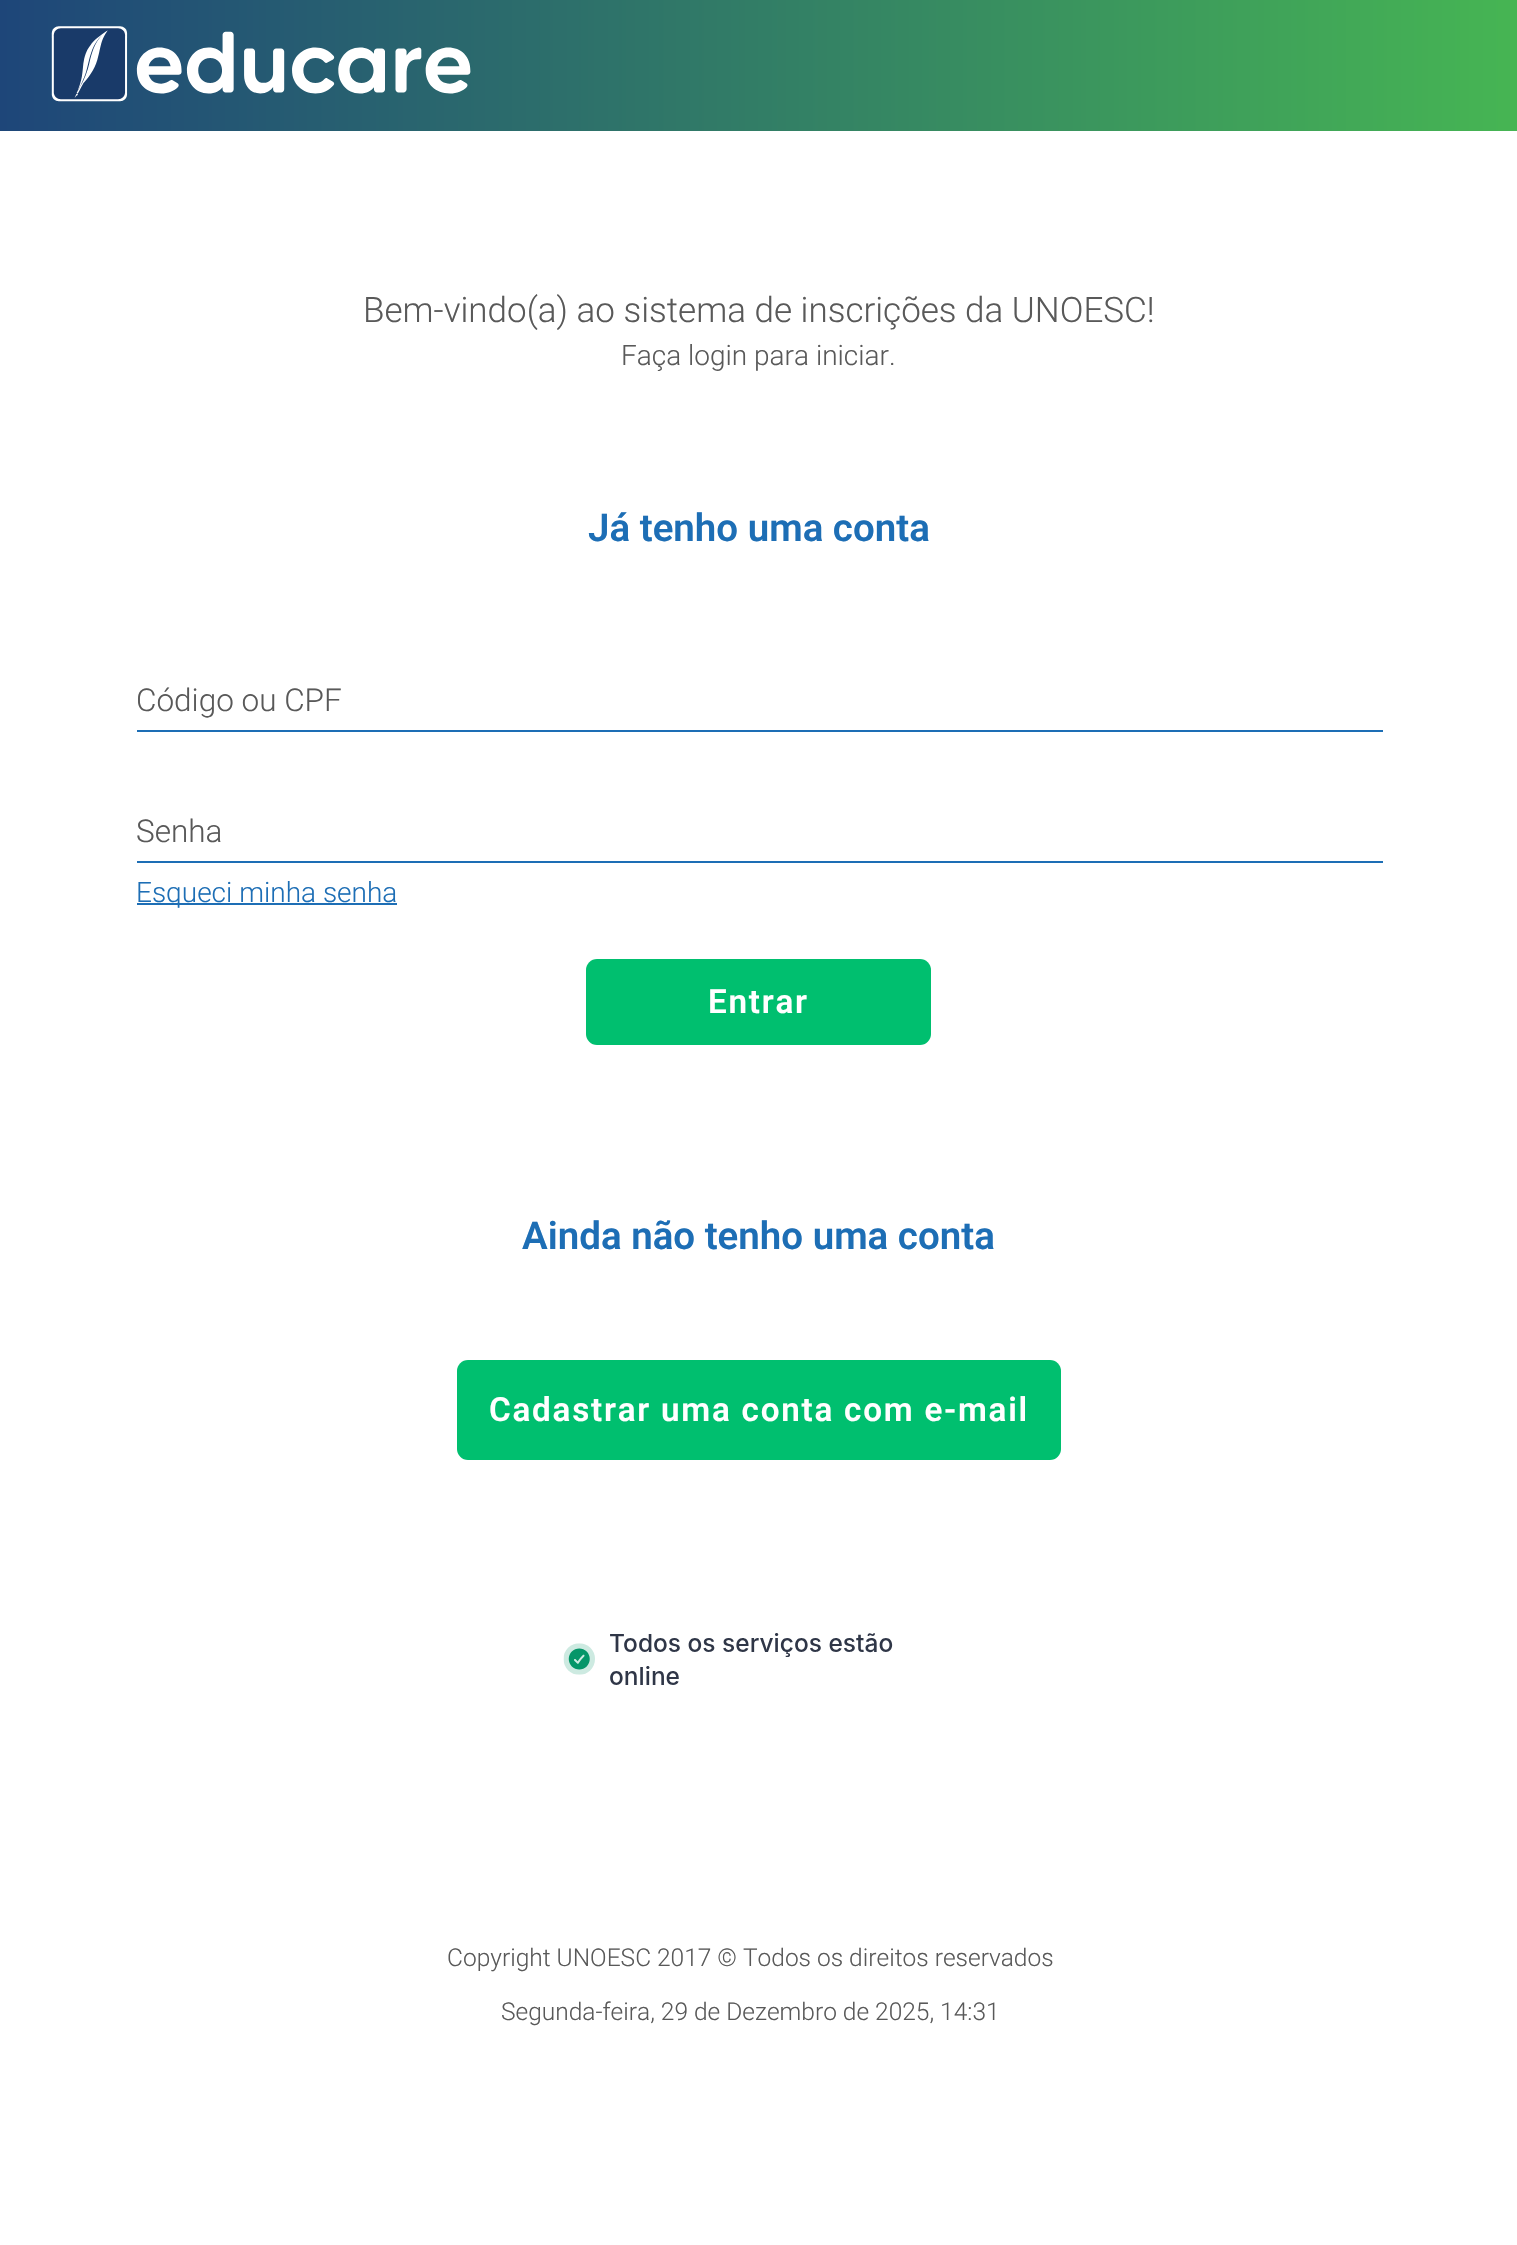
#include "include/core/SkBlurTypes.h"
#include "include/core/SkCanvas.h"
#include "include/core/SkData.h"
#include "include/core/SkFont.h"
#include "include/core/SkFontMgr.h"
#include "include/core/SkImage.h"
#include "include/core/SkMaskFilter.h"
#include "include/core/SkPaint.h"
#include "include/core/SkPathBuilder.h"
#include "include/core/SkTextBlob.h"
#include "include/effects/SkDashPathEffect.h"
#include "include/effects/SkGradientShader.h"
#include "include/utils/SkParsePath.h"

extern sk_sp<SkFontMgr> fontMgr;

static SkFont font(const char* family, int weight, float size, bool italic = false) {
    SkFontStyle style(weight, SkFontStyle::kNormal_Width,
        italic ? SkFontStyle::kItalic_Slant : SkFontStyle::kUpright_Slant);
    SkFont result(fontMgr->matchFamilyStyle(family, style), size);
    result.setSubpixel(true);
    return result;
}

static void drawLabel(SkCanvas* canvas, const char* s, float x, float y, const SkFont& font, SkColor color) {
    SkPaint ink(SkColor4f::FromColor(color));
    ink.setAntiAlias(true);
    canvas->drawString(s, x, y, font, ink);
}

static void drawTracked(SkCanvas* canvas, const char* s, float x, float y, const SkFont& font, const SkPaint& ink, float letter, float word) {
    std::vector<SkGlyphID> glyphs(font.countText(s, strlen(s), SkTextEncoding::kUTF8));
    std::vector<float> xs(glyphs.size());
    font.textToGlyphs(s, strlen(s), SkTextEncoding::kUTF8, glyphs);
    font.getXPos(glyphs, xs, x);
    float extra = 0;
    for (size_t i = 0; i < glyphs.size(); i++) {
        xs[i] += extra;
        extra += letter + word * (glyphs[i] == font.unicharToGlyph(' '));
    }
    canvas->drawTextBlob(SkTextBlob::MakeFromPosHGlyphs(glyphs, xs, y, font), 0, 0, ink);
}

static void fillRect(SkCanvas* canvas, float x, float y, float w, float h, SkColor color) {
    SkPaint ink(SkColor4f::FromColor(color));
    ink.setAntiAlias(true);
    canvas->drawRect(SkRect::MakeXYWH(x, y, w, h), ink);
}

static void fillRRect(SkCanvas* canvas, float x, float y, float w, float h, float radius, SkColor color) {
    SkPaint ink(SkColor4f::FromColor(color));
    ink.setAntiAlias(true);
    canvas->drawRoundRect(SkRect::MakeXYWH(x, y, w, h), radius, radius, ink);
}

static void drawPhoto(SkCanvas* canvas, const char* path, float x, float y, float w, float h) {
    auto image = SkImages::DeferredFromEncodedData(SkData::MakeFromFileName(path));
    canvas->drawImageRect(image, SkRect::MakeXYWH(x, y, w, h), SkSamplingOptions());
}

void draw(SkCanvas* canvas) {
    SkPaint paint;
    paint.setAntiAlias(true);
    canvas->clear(0xFFFFFFFF);
    {
        const SkColor colors[] = {0xFF1E4679, 0xFF46B553};
        const float stops[] = {0, 1};
        const SkPoint ends[] = {{0, 66}, {1517, 66}};
        paint.setShader(SkGradientShader::MakeLinear(ends, colors, stops, 2, SkTileMode::kClamp));
        paint.setAlpha(255);
    }
    canvas->drawRect(SkRect::MakeXYWH(0, 0, 1517, 131), paint);
    drawPhoto(canvas, "assets/img1.png", 51, 26, 420, 76);
    SkFont font1 = font("Roboto", 300, 35);
    drawLabel(canvas, "Bem-vindo(a) ao sistema de inscrições da UNOESC!", 363, 322, font1, 0xFF595959);
    SkFont font2 = font("Roboto", 300, 28);
    drawLabel(canvas, "Faça login para iniciar.", 621, 365, font2, 0xFF595959);
    SkFont font3 = font("Roboto", 600, 38.5f);
    drawLabel(canvas, "Já tenho uma conta", 588, 541, font3, 0xFF1D6EB5);
    SkFont font4 = font("Roboto", 300, 31.5f);
    drawLabel(canvas, "Código ou CPF", 136, 711, font4, 0xFF595959);
    fillRect(canvas, 137, 730, 1246, 2, 0xFF1D6EB5);
    drawLabel(canvas, "Senha", 136, 842, font4, 0xFF595959);
    fillRect(canvas, 137, 861, 1246, 2, 0xFF1D6EB5);
    fillRect(canvas, 137, 903, 260, 2, 0xFF1D6EB5);
    drawLabel(canvas, "Esqueci minha senha", 136, 902, font2, 0xFF1D6EB5);
    fillRRect(canvas, 586, 959, 345, 86, 11, 0xFF00BF6F);
    SkFont font5 = font("Roboto", 600, 33.25f);
    paint.setShader(nullptr);
    paint.setColor(0xFFFFFFFF);
    drawTracked(canvas, "Entrar", 708, 1013, font5, paint, 1.75f, 0);
    drawLabel(canvas, "Ainda não tenho uma conta", 522, 1249, font3, 0xFF1D6EB5);
    fillRRect(canvas, 457, 1360, 604, 100, 11, 0xFF00BF6F);
    drawTracked(canvas, "Cadastrar uma conta com e-mail", 489, 1421, font5, paint, 1.75f, 0);
    drawPhoto(canvas, "assets/img2.png", 563, 1633, 330, 52);
    SkFont font6 = font("Roboto", 300, 24.5f);
    drawLabel(canvas, "Copyright UNOESC 2017 © Todos os direitos reservados", 447, 1966, font6, 0xFF595959);
    drawLabel(canvas, "Segunda-feira, 29 de Dezembro de 2025, 14:31", 501, 2020, font6, 0xFF595959);
}
